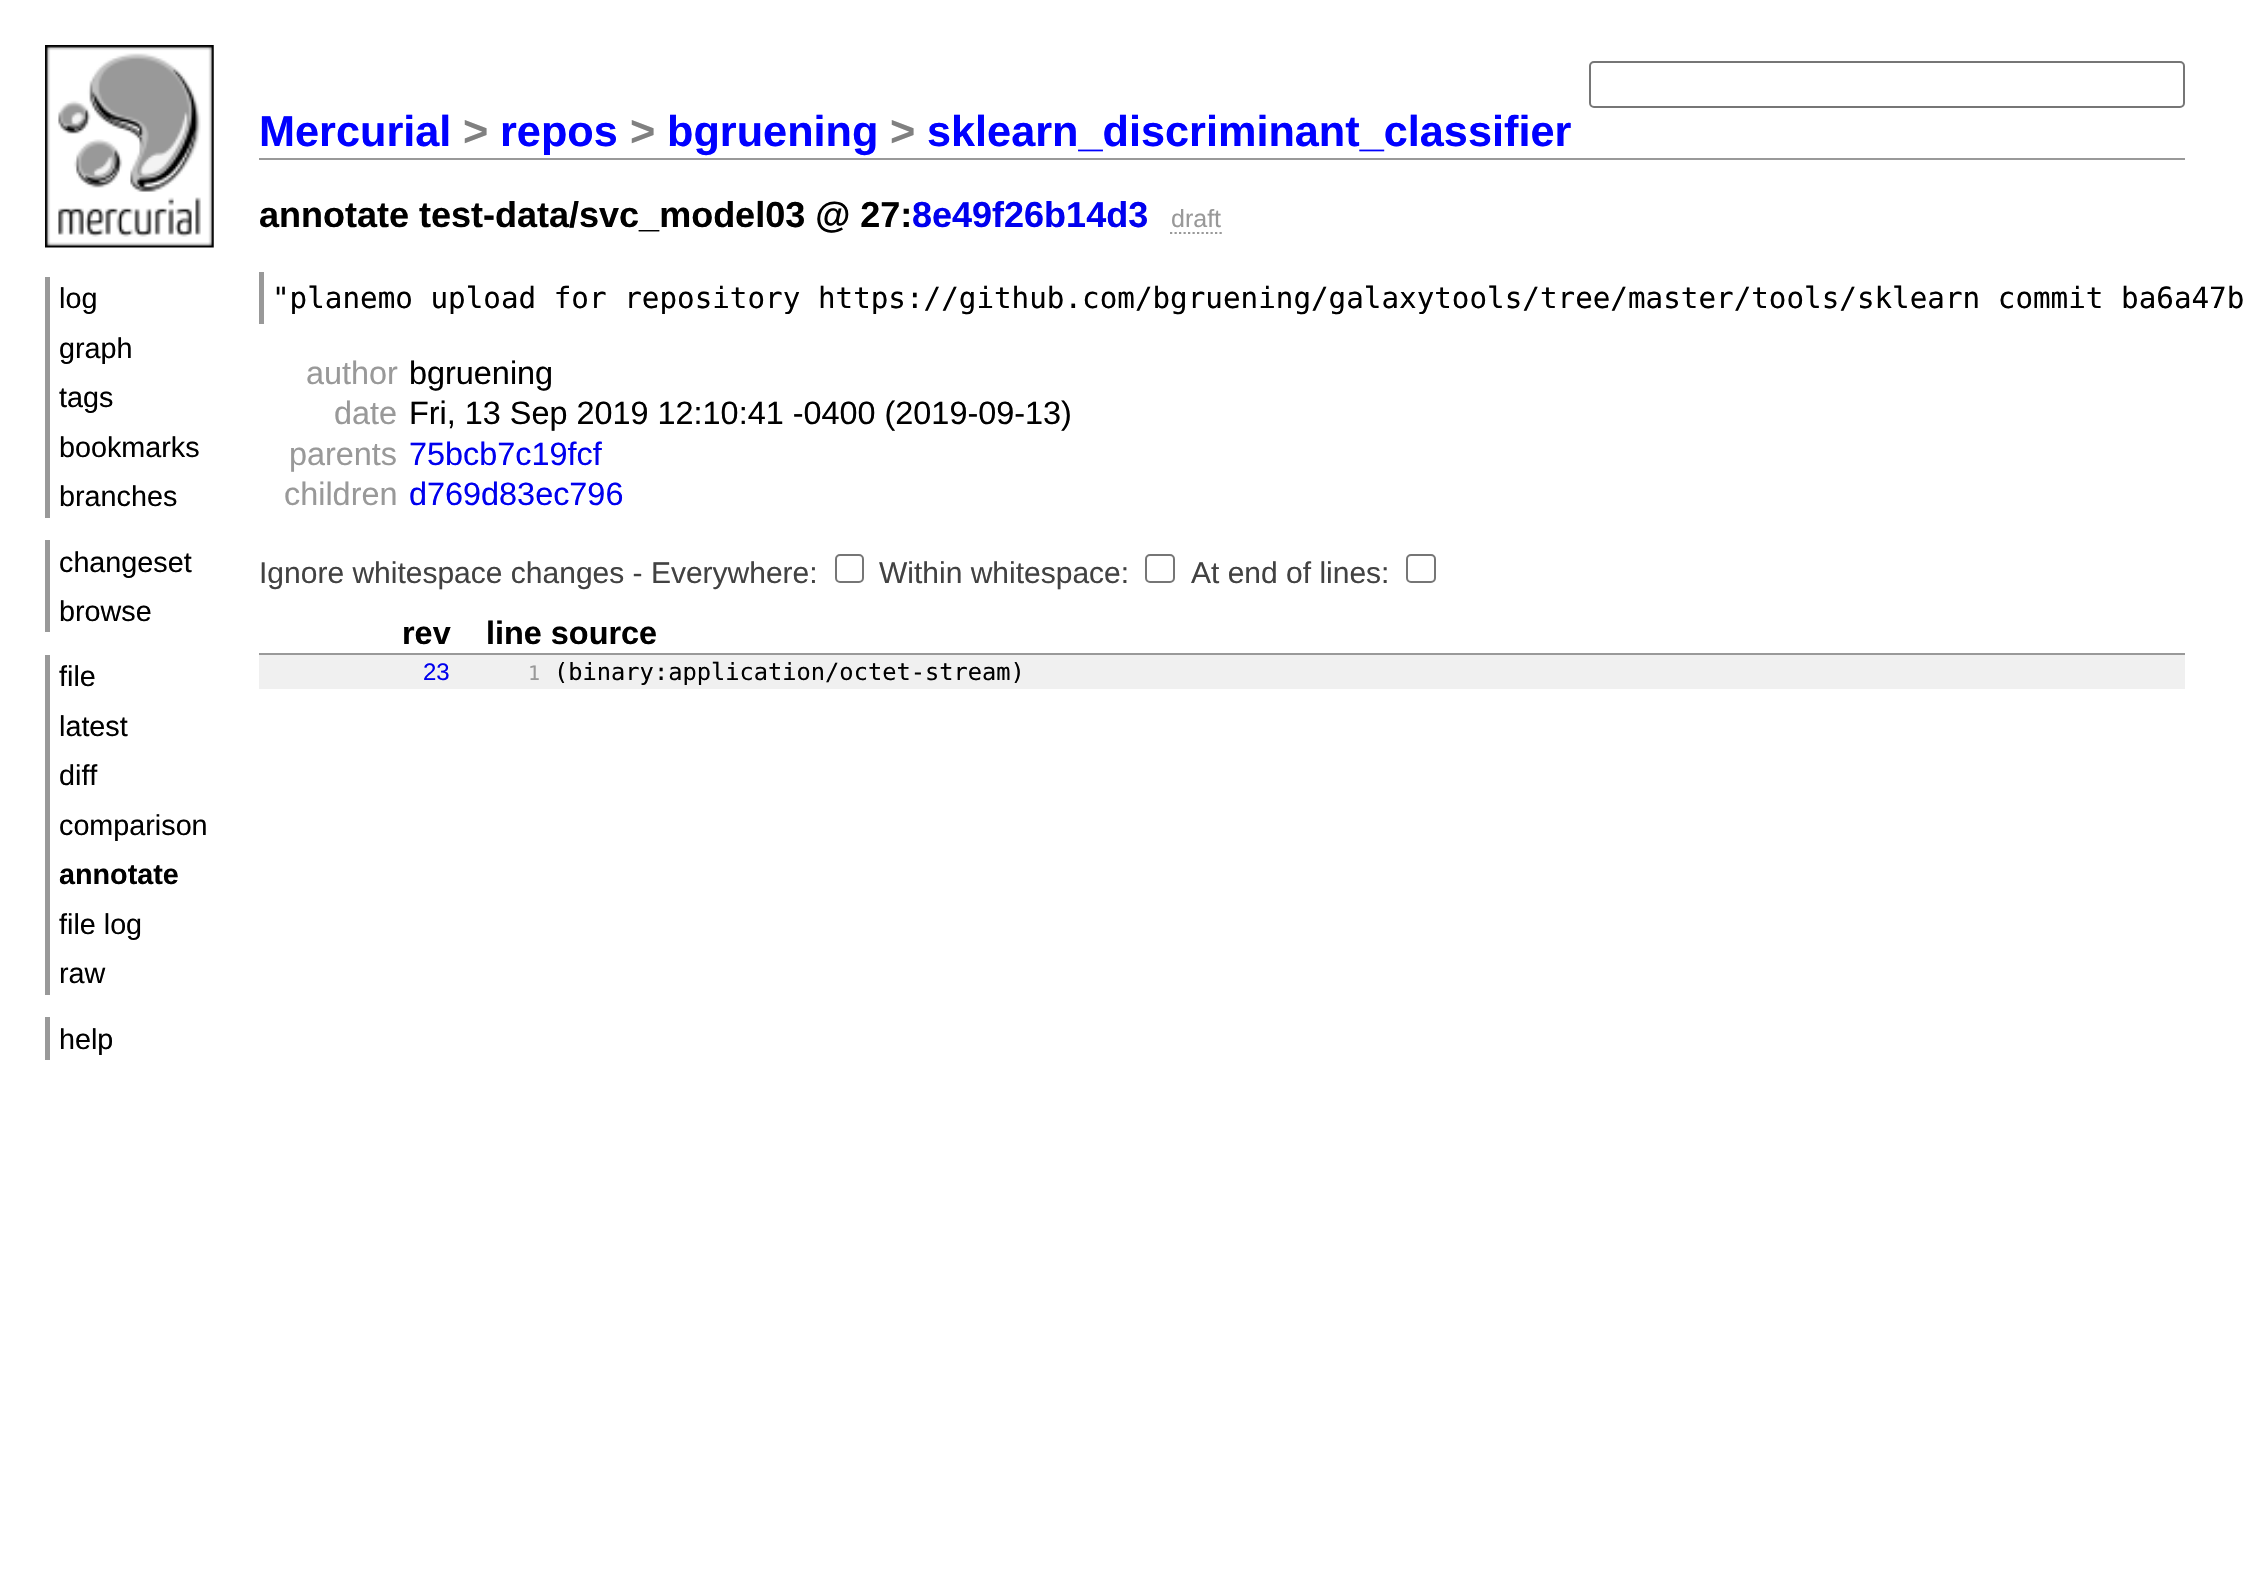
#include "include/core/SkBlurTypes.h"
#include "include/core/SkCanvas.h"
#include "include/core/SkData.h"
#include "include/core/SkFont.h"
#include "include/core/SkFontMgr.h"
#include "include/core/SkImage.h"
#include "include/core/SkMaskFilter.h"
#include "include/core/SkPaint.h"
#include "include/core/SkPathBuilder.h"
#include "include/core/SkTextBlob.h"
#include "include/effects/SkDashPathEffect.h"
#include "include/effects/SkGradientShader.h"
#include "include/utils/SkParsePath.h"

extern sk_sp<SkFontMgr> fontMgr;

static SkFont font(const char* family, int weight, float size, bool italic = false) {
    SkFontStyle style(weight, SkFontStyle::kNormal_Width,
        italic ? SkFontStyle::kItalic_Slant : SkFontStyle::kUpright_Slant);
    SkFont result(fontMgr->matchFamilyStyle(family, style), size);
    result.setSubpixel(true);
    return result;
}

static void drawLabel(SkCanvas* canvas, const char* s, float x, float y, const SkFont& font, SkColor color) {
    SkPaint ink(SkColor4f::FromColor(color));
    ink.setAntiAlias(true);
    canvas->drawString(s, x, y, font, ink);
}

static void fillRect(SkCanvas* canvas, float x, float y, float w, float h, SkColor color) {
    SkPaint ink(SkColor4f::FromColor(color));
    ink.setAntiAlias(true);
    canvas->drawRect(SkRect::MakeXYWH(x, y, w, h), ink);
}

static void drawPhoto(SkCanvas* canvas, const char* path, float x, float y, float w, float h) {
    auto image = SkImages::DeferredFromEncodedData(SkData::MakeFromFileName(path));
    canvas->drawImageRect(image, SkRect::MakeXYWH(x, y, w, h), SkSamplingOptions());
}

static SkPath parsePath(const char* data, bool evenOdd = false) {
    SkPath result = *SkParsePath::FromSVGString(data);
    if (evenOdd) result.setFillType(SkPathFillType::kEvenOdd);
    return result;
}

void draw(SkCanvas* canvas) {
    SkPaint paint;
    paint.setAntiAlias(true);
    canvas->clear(0xFFFFFFFF);
    drawPhoto(canvas, "assets/img1.png", 45, 45, 169, 203);
    fillRect(canvas, 45, 277, 5, 241, 0xFF999999);
    SkFont font1 = font("Liberation Sans", 400, 28.75f);
    drawLabel(canvas, "log", 59, 308, font1, 0xFF000000);
    drawLabel(canvas, "graph", 59, 358, font1, 0xFF000000);
    drawLabel(canvas, "tags", 59, 407, font1, 0xFF000000);
    drawLabel(canvas, "bookmarks", 59, 457, font1, 0xFF000000);
    drawLabel(canvas, "branches", 59, 506, font1, 0xFF000000);
    fillRect(canvas, 45, 540, 5, 92, 0xFF999999);
    drawLabel(canvas, "changeset", 59, 572, font1, 0xFF000000);
    drawLabel(canvas, "browse", 59, 621, font1, 0xFF000000);
    fillRect(canvas, 45, 655, 5, 340, 0xFF999999);
    drawLabel(canvas, "file", 59, 686, font1, 0xFF000000);
    drawLabel(canvas, "latest", 59, 736, font1, 0xFF000000);
    drawLabel(canvas, "diff", 59, 785, font1, 0xFF000000);
    drawLabel(canvas, "comparison", 59, 835, font1, 0xFF000000);
    SkFont font2 = font("Liberation Sans", 700, 28.75f);
    drawLabel(canvas, "annotate", 59, 884, font2, 0xFF000000);
    drawLabel(canvas, "file log", 59, 934, font1, 0xFF000000);
    drawLabel(canvas, "raw", 59, 983, font1, 0xFF000000);
    fillRect(canvas, 45, 1017, 5, 43, 0xFF999999);
    drawLabel(canvas, "help", 59, 1049, font1, 0xFF000000);
    paint.setStroke(true);
    paint.setStrokeWidth(2);
    paint.setColor(0xFF767676);
    canvas->drawRoundRect(SkRect::MakeXYWH(1590, 62, 594, 45), 4, 4, paint);
    fillRect(canvas, 259, 158, 1926, 2, 0xFF999999);
    SkFont font3 = font("Liberation Sans", 700, 43.25f);
    drawLabel(canvas, "Mercurial", 259, 146, font3, 0xFF0000FF);
    drawLabel(canvas, ">", 463, 146, font3, 0xFF808080);
    drawLabel(canvas, "repos", 500, 146, font3, 0xFF0000FF);
    drawLabel(canvas, ">", 630, 146, font3, 0xFF808080);
    drawLabel(canvas, "bgruening", 667, 146, font3, 0xFF0000FF);
    drawLabel(canvas, ">", 890, 146, font3, 0xFF808080);
    drawLabel(canvas, "sklearn_discriminant_classifier", 927, 146, font3, 0xFF0000FF);
    SkFont font4 = font("Liberation Sans", 700, 36);
    drawLabel(canvas, "annotate test-data/svc_model03 @ 27:", 259, 227, font4, 0xFF000000);
    drawLabel(canvas, "8e49f26b14d3", 912, 227, font4, 0xFF0000EE);
    SkFont font5 = font("Liberation Sans", 400, 25);
    drawLabel(canvas, "draft", 1171, 227, font5, 0xFF999999);
    paint.setStrokeWidth(2.2f);
    paint.setColor(0xFF999999);
    paint.setPathEffect(SkDashPathEffect::Make({{2.25f, 2.25f}}, 0));
    canvas->drawPath(parsePath("M1170 233H1222"), paint);
    paint.setPathEffect(nullptr);
    fillRect(canvas, 259, 272, 5, 52, 0xFF999999);
    SkFont font6 = font("DejaVu Sans Mono", 400, 29.25f);
    drawLabel(canvas, "\"planemo upload for repository https://github.com/bgruening/galaxytools/tree/master/tools/sklearn commit ba6a47b", 272, 308, font6, 0xFF000000);
    SkFont font7 = font("Liberation Sans", 400, 32.4f);
    drawLabel(canvas, "author", 306, 384, font7, 0xFF999999);
    drawLabel(canvas, "bgruening", 409, 384, font7, 0xFF000000);
    drawLabel(canvas, "date", 334, 424, font7, 0xFF999999);
    drawLabel(canvas, "Fri, 13 Sep 2019 12:10:41 -0400 (2019-09-13)", 409, 424, font7, 0xFF000000);
    drawLabel(canvas, "parents", 289, 465, font7, 0xFF999999);
    drawLabel(canvas, "75bcb7c19fcf", 409, 465, font7, 0xFF0000EE);
    drawLabel(canvas, "children", 284, 505, font7, 0xFF999999);
    drawLabel(canvas, "d769d83ec796", 409, 505, font7, 0xFF0000EE);
    SkFont font8 = font("Liberation Sans", 400, 30);
    drawLabel(canvas, "Ignore whitespace changes - Everywhere:", 259, 583, font8, 0xFF424242);
    paint.setStrokeWidth(2);
    paint.setColor(0xFF767676);
    canvas->drawRoundRect(SkRect::MakeXYWH(836, 555, 27, 27), 4, 4, paint);
    drawLabel(canvas, "Within whitespace:", 879, 583, font8, 0xFF424242);
    canvas->drawRoundRect(SkRect::MakeXYWH(1146, 555, 28, 27), 4, 4, paint);
    drawLabel(canvas, "At end of lines:", 1191, 583, font8, 0xFF424242);
    canvas->drawRoundRect(SkRect::MakeXYWH(1407, 555, 28, 27), 4, 4, paint);
    SkFont font9 = font("Liberation Sans", 700, 32.4f);
    drawLabel(canvas, "rev", 402, 644, font9, 0xFF000000);
    fillRect(canvas, 259, 653, 1926, 2, 0xFF999999);
    drawLabel(canvas, "line source", 486, 644, font9, 0xFF000000);
    fillRect(canvas, 259, 655, 1926, 34, 0xFFF0F0F0);
    SkFont font10 = font("Liberation Sans", 400, 24);
    drawLabel(canvas, "23", 423, 680, font10, 0xFF0000EE);
    SkFont font11 = font("DejaVu Sans Mono", 400, 20);
    drawLabel(canvas, "1", 528, 680, font11, 0xFF999999);
    SkFont font12 = font("DejaVu Sans Mono", 400, 23.7f);
    drawLabel(canvas, "(binary:application/octet-stream)", 554, 680, font12, 0xFF000000);
}
